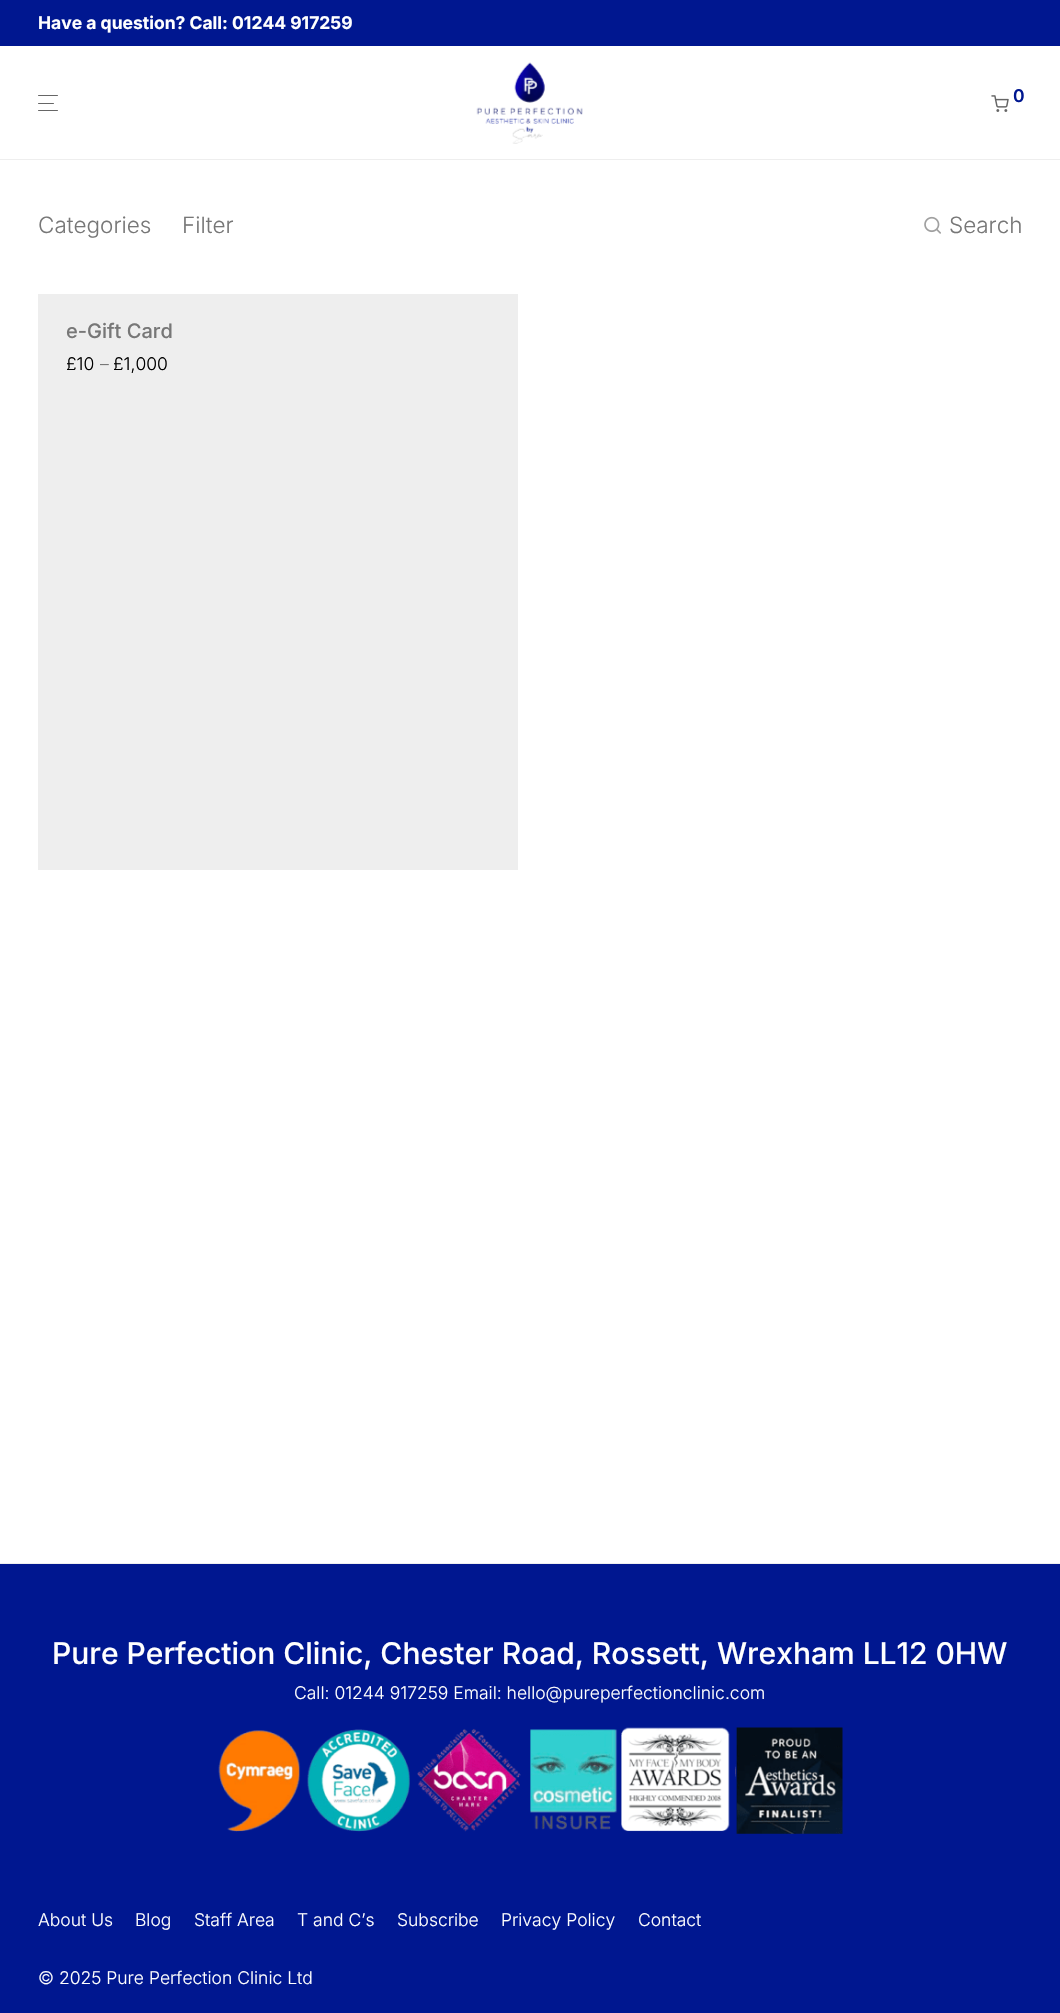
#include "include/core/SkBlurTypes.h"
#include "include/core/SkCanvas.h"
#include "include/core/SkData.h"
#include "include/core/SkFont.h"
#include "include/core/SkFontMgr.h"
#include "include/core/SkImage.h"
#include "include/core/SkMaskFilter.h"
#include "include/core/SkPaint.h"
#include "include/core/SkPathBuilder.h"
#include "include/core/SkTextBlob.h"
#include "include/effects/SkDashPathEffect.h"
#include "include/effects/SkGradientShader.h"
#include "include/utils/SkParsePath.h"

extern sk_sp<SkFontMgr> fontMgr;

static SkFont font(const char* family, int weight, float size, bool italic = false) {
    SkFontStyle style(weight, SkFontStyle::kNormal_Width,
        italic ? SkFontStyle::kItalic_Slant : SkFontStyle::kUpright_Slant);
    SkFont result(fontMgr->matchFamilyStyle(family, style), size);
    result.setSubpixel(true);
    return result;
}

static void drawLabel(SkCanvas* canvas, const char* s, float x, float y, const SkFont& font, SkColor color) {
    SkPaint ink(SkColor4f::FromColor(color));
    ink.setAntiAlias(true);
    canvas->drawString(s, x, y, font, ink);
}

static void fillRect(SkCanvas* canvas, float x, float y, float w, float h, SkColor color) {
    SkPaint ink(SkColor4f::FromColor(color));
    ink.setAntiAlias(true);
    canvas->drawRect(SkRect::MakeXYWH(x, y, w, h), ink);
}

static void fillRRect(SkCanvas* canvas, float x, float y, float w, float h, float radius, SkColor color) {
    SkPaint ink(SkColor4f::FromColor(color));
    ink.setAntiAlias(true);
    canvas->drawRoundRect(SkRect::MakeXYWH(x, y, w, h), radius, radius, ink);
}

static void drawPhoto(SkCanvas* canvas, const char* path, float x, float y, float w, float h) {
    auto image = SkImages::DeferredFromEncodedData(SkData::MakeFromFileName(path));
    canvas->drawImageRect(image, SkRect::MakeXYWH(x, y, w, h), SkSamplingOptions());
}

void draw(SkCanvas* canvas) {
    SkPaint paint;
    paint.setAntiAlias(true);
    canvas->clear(0xFFFFFFFF);
    fillRect(canvas, 0, 0, 1060, 46, 0xFF001790);
    SkFont font1 = font("Inter", 700, 17.5f);
    drawLabel(canvas, "Have a question? Call: 01244 917259", 38, 29, font1, 0xFFFFFFFF);
    fillRect(canvas, 0, 159, 1060, 1, 0xFFEEEEEE);
    fillRRect(canvas, 38, 95, 20, 1, 0.5f, 0xFF666666);
    fillRRect(canvas, 38, 103, 16, 1, 0.5f, 0xFF666666);
    fillRRect(canvas, 38, 110, 20, 1, 0.5f, 0xFF666666);
    drawPhoto(canvas, "assets/img1.png", 476, 62, 107, 82);
    drawPhoto(canvas, "assets/img2.png", 991, 95, 18, 17);
    SkFont font2 = font("Inter", 600, 17.5f);
    drawLabel(canvas, "0", 1013, 102, font2, 0xFF001790);
    SkFont font3 = font("Inter", 300, 22.5f);
    drawLabel(canvas, "Categories", 38, 233, font3, 0xFF777777);
    drawLabel(canvas, "Filter", 182, 233, font3, 0xFF777777);
    drawPhoto(canvas, "assets/img3.png", 924, 216, 17, 18);
    drawLabel(canvas, "Search", 949, 233, font3, 0xFF777777);
    fillRect(canvas, 38, 294, 480, 576, 0xFFEEEEEE);
    SkFont font4 = font("Inter", 500, 20);
    drawLabel(canvas, "e-Gift Card", 66, 338, font4, 0xFF777777);
    SkFont font5 = font("Inter", 300, 17.5f);
    drawLabel(canvas, "£10", 66, 370, font5, 0xFF000000);
    drawLabel(canvas, "–", 100, 370, font5, 0xFF777777);
    drawLabel(canvas, "£1,000", 113, 370, font5, 0xFF000000);
    fillRect(canvas, 0, 1564, 1060, 449, 0xFF001790);
    fillRect(canvas, 0, 1563, 1060, 1, 0xFFEEEEEE);
    SkFont font6 = font("Inter", 500, 30);
    drawLabel(canvas, "Pure Perfection Clinic, Chester Road, Rossett, Wrexham LL12 0HW", 52, 1664, font6, 0xFFFFFFFF);
    drawLabel(canvas, "Call: 01244 917259 Email: hello@pureperfectionclinic.com", 294, 1699, font5, 0xFFFFFFFF);
    drawPhoto(canvas, "assets/img4.png", 218, 1727, 625, 107);
    drawLabel(canvas, "About Us", 38, 1926, font5, 0xFFFFFFFF);
    drawLabel(canvas, "Blog", 135, 1926, font5, 0xFFFFFFFF);
    drawLabel(canvas, "Staff Area", 194, 1926, font5, 0xFFFFFFFF);
    drawLabel(canvas, "T and C’s", 297, 1926, font5, 0xFFFFFFFF);
    drawLabel(canvas, "Subscribe", 397, 1926, font5, 0xFFFFFFFF);
    drawLabel(canvas, "Privacy Policy", 501, 1926, font5, 0xFFFFFFFF);
    drawLabel(canvas, "Contact", 638, 1926, font5, 0xFFFFFFFF);
    drawLabel(canvas, "© 2025 Pure Perfection Clinic Ltd", 38, 1984, font5, 0xFFFFFFFF);
}
